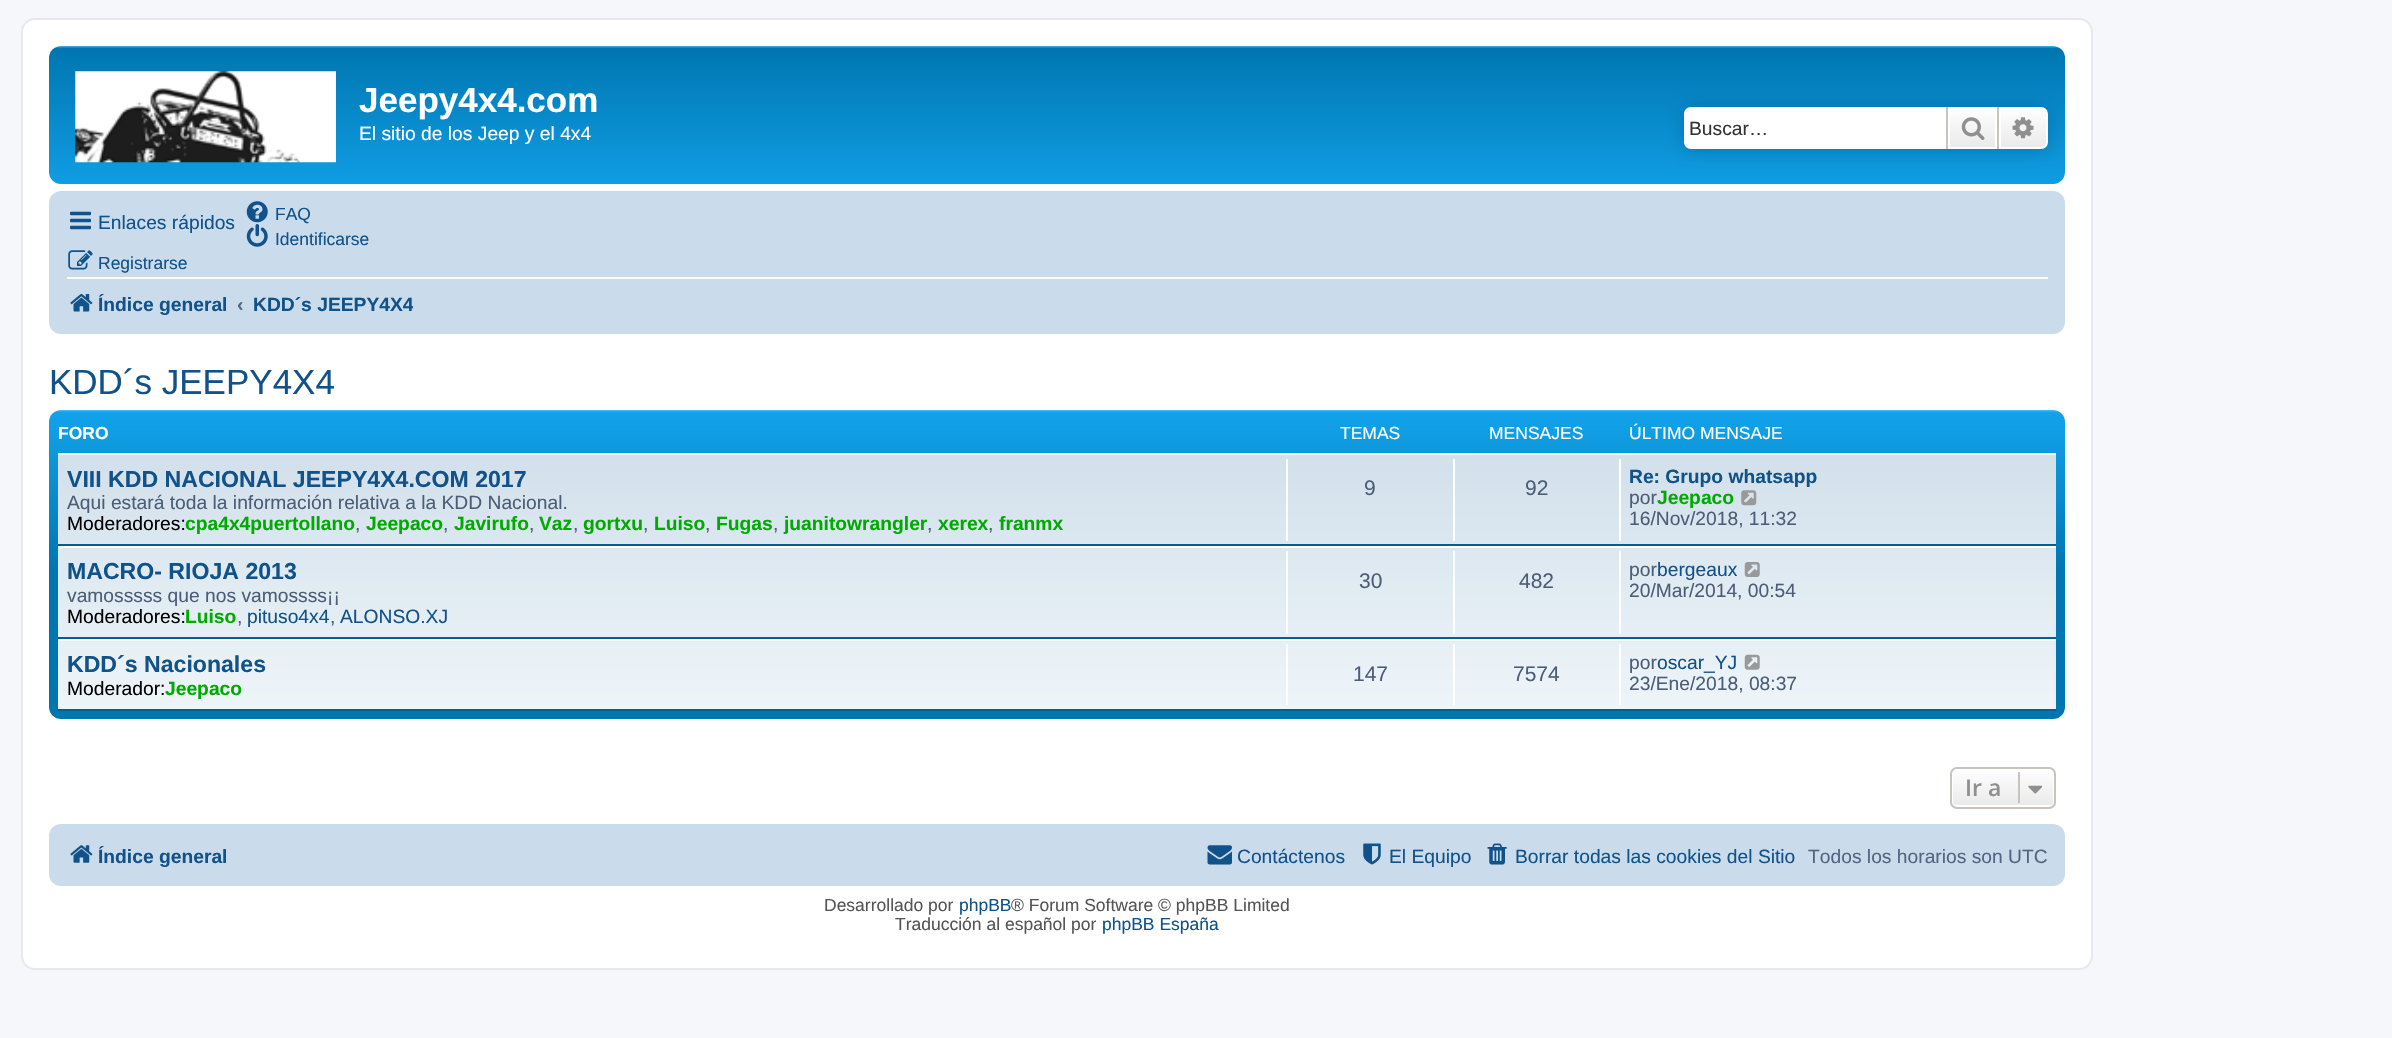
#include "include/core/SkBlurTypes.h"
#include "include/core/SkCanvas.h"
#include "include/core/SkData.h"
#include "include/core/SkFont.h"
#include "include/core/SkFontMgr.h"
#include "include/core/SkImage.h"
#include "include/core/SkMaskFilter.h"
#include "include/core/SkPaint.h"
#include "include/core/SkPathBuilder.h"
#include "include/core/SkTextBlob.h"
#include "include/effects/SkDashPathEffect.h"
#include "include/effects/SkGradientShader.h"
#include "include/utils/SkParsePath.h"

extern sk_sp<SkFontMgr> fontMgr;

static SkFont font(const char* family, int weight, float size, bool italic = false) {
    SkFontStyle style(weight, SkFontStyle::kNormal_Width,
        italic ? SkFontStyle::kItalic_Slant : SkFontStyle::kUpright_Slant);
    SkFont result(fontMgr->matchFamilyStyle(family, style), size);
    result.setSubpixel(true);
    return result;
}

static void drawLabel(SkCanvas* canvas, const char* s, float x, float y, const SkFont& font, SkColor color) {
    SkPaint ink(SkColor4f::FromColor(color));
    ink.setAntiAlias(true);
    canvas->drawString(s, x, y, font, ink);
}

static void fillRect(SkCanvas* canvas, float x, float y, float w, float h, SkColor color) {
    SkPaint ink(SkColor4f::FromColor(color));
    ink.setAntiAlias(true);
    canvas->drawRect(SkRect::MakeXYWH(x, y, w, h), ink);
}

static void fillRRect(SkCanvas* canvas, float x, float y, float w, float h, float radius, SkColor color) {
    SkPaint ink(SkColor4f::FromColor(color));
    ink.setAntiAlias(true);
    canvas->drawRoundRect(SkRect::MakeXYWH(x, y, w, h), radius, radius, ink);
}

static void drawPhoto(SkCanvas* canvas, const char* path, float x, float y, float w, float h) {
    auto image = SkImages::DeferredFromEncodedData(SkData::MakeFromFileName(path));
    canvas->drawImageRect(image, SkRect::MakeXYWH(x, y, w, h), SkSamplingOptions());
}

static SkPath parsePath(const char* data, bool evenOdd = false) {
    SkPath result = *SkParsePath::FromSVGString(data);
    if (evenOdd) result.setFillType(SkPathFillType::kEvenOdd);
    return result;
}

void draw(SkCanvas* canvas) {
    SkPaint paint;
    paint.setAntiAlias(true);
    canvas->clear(0xFFF5F7FA);
    paint.setColor(0xFFFFFFFF);
    canvas->drawRoundRect(SkRect::MakeXYWH(22, 19, 2070, 950), 13, 13, paint);
    paint.setStroke(true);
    paint.setStrokeWidth(2);
    paint.setColor(0xFFE6E9ED);
    canvas->drawRoundRect(SkRect::MakeXYWH(22, 19, 2070, 950), 13, 13, paint);
    paint.setStroke(false);
    {
        const SkColor colors[] = {0xFF6ACEFF, 0xFF0076B1, 0xFF12A3EB};
        const float stops[] = {0, 0.02f, 1};
        const SkPoint ends[] = {{1057, 45}, {1057, 206}};
        paint.setShader(SkGradientShader::MakeLinear(ends, colors, stops, 3, SkTileMode::kClamp));
        paint.setAlpha(255);
    }
    canvas->drawRoundRect(SkRect::MakeXYWH(49, 46, 2016, 138), 12, 12, paint);
    drawPhoto(canvas, "assets/img1.png", 75, 71, 261, 92);
    SkFont font1 = font("Liberation Sans", 700, 35);
    drawLabel(canvas, "Jeepy4x4.com", 359, 112, font1, 0xFFFFFFFF);
    SkFont font2 = font("Liberation Sans", 400, 19.25f);
    drawLabel(canvas, "El sitio de los Jeep y el 4x4", 359, 140, font2, 0xFFFFFFFF);
    paint.setShader(nullptr);
    paint.setColor(0xFF0075B0);
    paint.setMaskFilter(SkMaskFilter::MakeBlur(kNormal_SkBlurStyle, 9));
    canvas->drawRoundRect(SkRect::MakeXYWH(1684, 107, 364, 42), 7, 7, paint);
    paint.setMaskFilter(nullptr);
    paint.setColor(0xFFFFFFFF);
    canvas->drawPath(parsePath("M1691 107H1946V149H1691C1687 149 1684 146 1684 142V114C1684 110 1687 107 1691 107Z"), paint);
    drawLabel(canvas, "Buscar…", 1689, 135, font2, 0xFF333333);
    {
        const SkColor colors[] = {0xFFFFFFFF, 0xFFE9E9E9};
        const float stops[] = {0, 1};
        const SkPoint ends[] = {{1972, 107}, {1972, 149}};
        paint.setShader(SkGradientShader::MakeLinear(ends, colors, stops, 2, SkTileMode::kClamp));
        paint.setAlpha(255);
    }
    canvas->drawRect(SkRect::MakeXYWH(1950, 109, 45, 38), paint);
    paint.setStroke(true);
    paint.setShader(nullptr);
    paint.setColor(0xFFFFFFFF);
    canvas->drawRect(SkRect::MakeXYWH(1949, 108, 47, 40), paint);
    fillRect(canvas, 1997, 107, 2, 42, 0xFFC7C3BF);
    fillRect(canvas, 1946, 107, 2, 42, 0xFFC7C3BF);
    drawPhoto(canvas, "assets/img2.png", 1961, 117, 24, 23);
    paint.setStroke(false);
    {
        const SkColor colors[] = {0xFFFFFFFF, 0xFFE9E9E9};
        const float stops[] = {0, 1};
        const SkPoint ends[] = {{2023, 107}, {2023, 149}};
        paint.setShader(SkGradientShader::MakeLinear(ends, colors, stops, 2, SkTileMode::kClamp));
        paint.setAlpha(255);
    }
    canvas->drawPath(parsePath("M2000 108H2041C2044.5 108 2047 110.5 2047 114V142C2047 145.5 2044.5 148 2041 148H2000Z"), paint);
    paint.setStroke(true);
    paint.setShader(nullptr);
    paint.setColor(0xFFFFFFFF);
    canvas->drawPath(parsePath("M2000 108H2041C2044.5 108 2047 110.5 2047 114V142C2047 145.5 2044.5 148 2041 148H2000Z"), paint);
    drawPhoto(canvas, "assets/img3.png", 2012, 117, 22, 22);
    fillRRect(canvas, 49, 191, 2016, 143, 12, 0xFFCADCEB);
    drawPhoto(canvas, "assets/img4.png", 246, 201, 22, 22);
    SkFont font3 = font("Liberation Sans", 400, 17.5f);
    drawLabel(canvas, "FAQ", 275, 220, font3, 0xFF105289);
    drawPhoto(canvas, "assets/img5.png", 246, 224, 22, 23);
    drawLabel(canvas, "Identificarse", 275, 245, font3, 0xFF105289);
    drawPhoto(canvas, "assets/img6.png", 68, 250, 25, 20);
    drawLabel(canvas, "Registrarse", 98, 269, font3, 0xFF105289);
    drawPhoto(canvas, "assets/img7.png", 70, 211, 21, 19);
    drawLabel(canvas, "Enlaces rápidos", 98, 229, font2, 0xFF105289);
    fillRect(canvas, 67, 277, 1981, 2, 0xFFFFFFFF);
    drawPhoto(canvas, "assets/img8.png", 70, 294, 23, 18);
    SkFont font4 = font("Liberation Sans", 700, 19.25f);
    drawLabel(canvas, "Índice general", 98, 311, font4, 0xFF105289);
    drawLabel(canvas, "‹", 237, 311, font4, 0xFF536482);
    canvas->save();
    canvas->clipRect(SkRect::MakeXYWH(254, 284, 159, 42));
    drawLabel(canvas, "KDD´s JEEPY4X4", 253, 311, font4, 0xFF105289);
    canvas->restore();
    SkFont font5 = font("Liberation Sans", 400, 35);
    drawLabel(canvas, "KDD´s JEEPY4X4", 49, 394, font5, 0xFF105289);
    paint.setStroke(false);
    {
        const SkColor colors[] = {0xFF6ACEFF, 0xFF12A3EB, 0xFF0076B1, 0xFF0076B1};
        const float stops[] = {0, 0.01f, 0.52f, 1};
        const SkPoint ends[] = {{1057, 409}, {1057, 719}};
        paint.setShader(SkGradientShader::MakeLinear(ends, colors, stops, 4, SkTileMode::kClamp));
        paint.setAlpha(255);
    }
    canvas->drawRoundRect(SkRect::MakeXYWH(49, 410, 2016, 309), 12, 12, paint);
    SkFont font6 = font("Liberation Sans", 700, 17.5f);
    drawLabel(canvas, "FORO", 58, 439, font6, 0xFFFFFFFF);
    drawLabel(canvas, "TEMAS", 1340, 439, font3, 0xFFFFFFFF);
    drawLabel(canvas, "MENSAJES", 1489, 439, font3, 0xFFFFFFFF);
    drawLabel(canvas, "ÚLTIMO MENSAJE", 1629, 439, font3, 0xFFFFFFFF);
    {
        const SkColor colors[] = {0xFFD2E0EB, 0xFFEEF5F9};
        const float stops[] = {0, 1};
        const SkPoint ends[] = {{1057, 453}, {1057, 711}};
        paint.setShader(SkGradientShader::MakeLinear(ends, colors, stops, 2, SkTileMode::kClamp));
        paint.setAlpha(255);
    }
    canvas->drawRect(SkRect::MakeXYWH(58, 455, 1998, 254), paint);
    fillRect(canvas, 58, 453, 1998, 2, 0xFFFFFFFF);
    fillRect(canvas, 58, 544, 1998, 2, 0xFF00608F);
    SkFont font7 = font("Liberation Sans", 700, 23.1f);
    drawLabel(canvas, "VIII KDD NACIONAL JEEPY4X4.COM 2017", 67, 487, font7, 0xFF105289);
    drawLabel(canvas, "Aqui estará toda la información relativa a la KDD Nacional.", 67, 509, font2, 0xFF4C5D77);
    drawLabel(canvas, "Moderadores:", 67, 530, font2, 0xFF000000);
    drawLabel(canvas, "cpa4x4puertollano", 185, 530, font4, 0xFF00AA00);
    drawLabel(canvas, ",", 355, 530, font2, 0xFF4C5D77);
    drawLabel(canvas, "Jeepaco", 366, 530, font4, 0xFF00AA00);
    drawLabel(canvas, ",", 443, 530, font2, 0xFF4C5D77);
    drawLabel(canvas, "Javirufo", 454, 530, font4, 0xFF00AA00);
    drawLabel(canvas, ",", 529, 530, font2, 0xFF4C5D77);
    drawLabel(canvas, "Vaz", 539, 530, font4, 0xFF00AA00);
    drawLabel(canvas, ",", 573, 530, font2, 0xFF4C5D77);
    drawLabel(canvas, "gortxu", 583, 530, font4, 0xFF00AA00);
    drawLabel(canvas, ",", 643, 530, font2, 0xFF4C5D77);
    drawLabel(canvas, "Luiso", 654, 530, font4, 0xFF00AA00);
    drawLabel(canvas, ",", 705, 530, font2, 0xFF4C5D77);
    drawLabel(canvas, "Fugas", 716, 530, font4, 0xFF00AA00);
    drawLabel(canvas, ",", 773, 530, font2, 0xFF4C5D77);
    drawLabel(canvas, "juanitowrangler", 784, 530, font4, 0xFF00AA00);
    drawLabel(canvas, ",", 927, 530, font2, 0xFF4C5D77);
    drawLabel(canvas, "xerex", 938, 530, font4, 0xFF00AA00);
    drawLabel(canvas, ",", 988, 530, font2, 0xFF4C5D77);
    drawLabel(canvas, "franmx", 999, 530, font4, 0xFF00AA00);
    fillRect(canvas, 1286, 459, 2, 82, 0xFFFFFFFF);
    SkFont font8 = font("Liberation Sans", 400, 21);
    drawLabel(canvas, "9", 1364, 495, font8, 0xFF4C5D77);
    fillRect(canvas, 1453, 459, 2, 82, 0xFFFFFFFF);
    drawLabel(canvas, "92", 1525, 495, font8, 0xFF4C5D77);
    fillRect(canvas, 1619, 459, 2, 82, 0xFFFFFFFF);
    drawLabel(canvas, "Re: Grupo whatsapp", 1629, 483, font4, 0xFF105289);
    drawLabel(canvas, "por", 1629, 504, font2, 0xFF4C5D77);
    drawLabel(canvas, "Jeepaco", 1657, 504, font4, 0xFF00AA00);
    drawPhoto(canvas, "assets/img9.png", 1741, 490, 16, 16);
    drawLabel(canvas, "16/Nov/2018, 11:32", 1629, 525, font2, 0xFF4C5D77);
    fillRect(canvas, 58, 546, 1998, 2, 0xFFFFFFFF);
    fillRect(canvas, 58, 637, 1998, 2, 0xFF00608F);
    drawLabel(canvas, "MACRO- RIOJA 2013", 67, 579, font7, 0xFF105289);
    drawLabel(canvas, "vamosssss que nos vamossss¡¡", 67, 602, font2, 0xFF4C5D77);
    drawLabel(canvas, "Moderadores:", 67, 623, font2, 0xFF000000);
    drawLabel(canvas, "Luiso", 185, 623, font4, 0xFF00AA00);
    drawLabel(canvas, ",", 237, 623, font2, 0xFF4C5D77);
    drawLabel(canvas, "pituso4x4", 247, 623, font2, 0xFF105289);
    drawLabel(canvas, ",", 330, 623, font2, 0xFF4C5D77);
    drawLabel(canvas, "ALONSO.XJ", 340, 623, font2, 0xFF105289);
    fillRect(canvas, 1286, 551, 2, 83, 0xFFFFFFFF);
    drawLabel(canvas, "30", 1359, 588, font8, 0xFF4C5D77);
    fillRect(canvas, 1453, 551, 2, 83, 0xFFFFFFFF);
    drawLabel(canvas, "482", 1519, 588, font8, 0xFF4C5D77);
    fillRect(canvas, 1619, 551, 2, 83, 0xFFFFFFFF);
    drawLabel(canvas, "por", 1629, 576, font2, 0xFF4C5D77);
    drawLabel(canvas, "bergeaux", 1657, 576, font2, 0xFF105289);
    drawPhoto(canvas, "assets/img10.png", 1744, 562, 16, 15);
    drawLabel(canvas, "20/Mar/2014, 00:54", 1629, 597, font2, 0xFF4C5D77);
    fillRect(canvas, 58, 639, 1998, 2, 0xFFFFFFFF);
    fillRect(canvas, 58, 709, 1998, 2, 0xFF00608F);
    drawLabel(canvas, "KDD´s Nacionales", 67, 672, font7, 0xFF105289);
    drawLabel(canvas, "Moderador:", 67, 695, font2, 0xFF000000);
    drawLabel(canvas, "Jeepaco", 165, 695, font4, 0xFF00AA00);
    fillRect(canvas, 1286, 644, 2, 61, 0xFFFFFFFF);
    drawLabel(canvas, "147", 1353, 681, font8, 0xFF4C5D77);
    fillRect(canvas, 1453, 644, 2, 61, 0xFFFFFFFF);
    drawLabel(canvas, "7574", 1513, 681, font8, 0xFF4C5D77);
    fillRect(canvas, 1619, 644, 2, 61, 0xFFFFFFFF);
    drawLabel(canvas, "por", 1629, 669, font2, 0xFF4C5D77);
    drawLabel(canvas, "oscar_YJ", 1657, 669, font2, 0xFF105289);
    drawPhoto(canvas, "assets/img11.png", 1744, 654, 16, 16);
    drawLabel(canvas, "23/Ene/2018, 08:37", 1629, 690, font2, 0xFF4C5D77);
    canvas->save();
    canvas->clipPath(parsePath("M1957 767H2049C2053 767 2056 770 2056 774V802C2056 806 2053 809 2049 809H1957C1953 809 1950 806 1950 802V774C1950 770 1953 767 1957 767Z"), true);
    {
        const SkColor colors[] = {0xFFFFFFFF, 0xFFE9E9E9};
        const float stops[] = {0, 1};
        const SkPoint ends[] = {{2003, 768}, {2003, 807}};
        paint.setShader(SkGradientShader::MakeLinear(ends, colors, stops, 2, SkTileMode::kClamp));
        paint.setAlpha(255);
    }
    canvas->drawRect(SkRect::MakeXYWH(1950, 768, 106, 39), paint);
    canvas->restore();
    paint.setStroke(true);
    paint.setShader(nullptr);
    paint.setColor(0xFFFFFFFF);
    canvas->drawRoundRect(SkRect::MakeXYWH(1952, 769, 102, 37), 4, 4, paint);
    paint.setColor(0xFFC7C3BF);
    canvas->drawRoundRect(SkRect::MakeXYWH(1951, 768, 104, 40), 6, 6, paint);
    SkFont font9 = font("Open Sans", 600, 23);
    drawLabel(canvas, "Ir a", 1965, 796, font9, 0xFF8F8F8F);
    fillRect(canvas, 2018, 772, 2, 31, 0xFFC7C3BF);
    drawPhoto(canvas, "assets/img12.png", 2028, 785, 15, 9);
    fillRRect(canvas, 49, 824, 2016, 62, 12, 0xFFCADCEB);
    drawPhoto(canvas, "assets/img13.png", 70, 845, 23, 18);
    drawLabel(canvas, "Índice general", 98, 863, font4, 0xFF105289);
    drawPhoto(canvas, "assets/img14.png", 1207, 845, 25, 20);
    drawLabel(canvas, "Contáctenos", 1237, 863, font2, 0xFF105289);
    drawPhoto(canvas, "assets/img15.png", 1363, 843, 18, 22);
    drawLabel(canvas, "El Equipo", 1389, 863, font2, 0xFF105289);
    drawPhoto(canvas, "assets/img16.png", 1487, 843, 20, 22);
    drawLabel(canvas, "Borrar todas las cookies del Sitio", 1515, 863, font2, 0xFF105289);
    drawLabel(canvas, "Todos los horarios son UTC", 1808, 863, font2, 0xFF536482);
    drawLabel(canvas, "Desarrollado por", 824, 911, font3, 0xFF555555);
    drawLabel(canvas, "phpBB", 959, 911, font3, 0xFF105289);
    drawLabel(canvas, "® Forum Software © phpBB Limited", 1011, 911, font3, 0xFF555555);
    drawLabel(canvas, "Traducción al español por", 895, 930, font3, 0xFF555555);
    drawLabel(canvas, "phpBB España", 1102, 930, font3, 0xFF105289);
}
